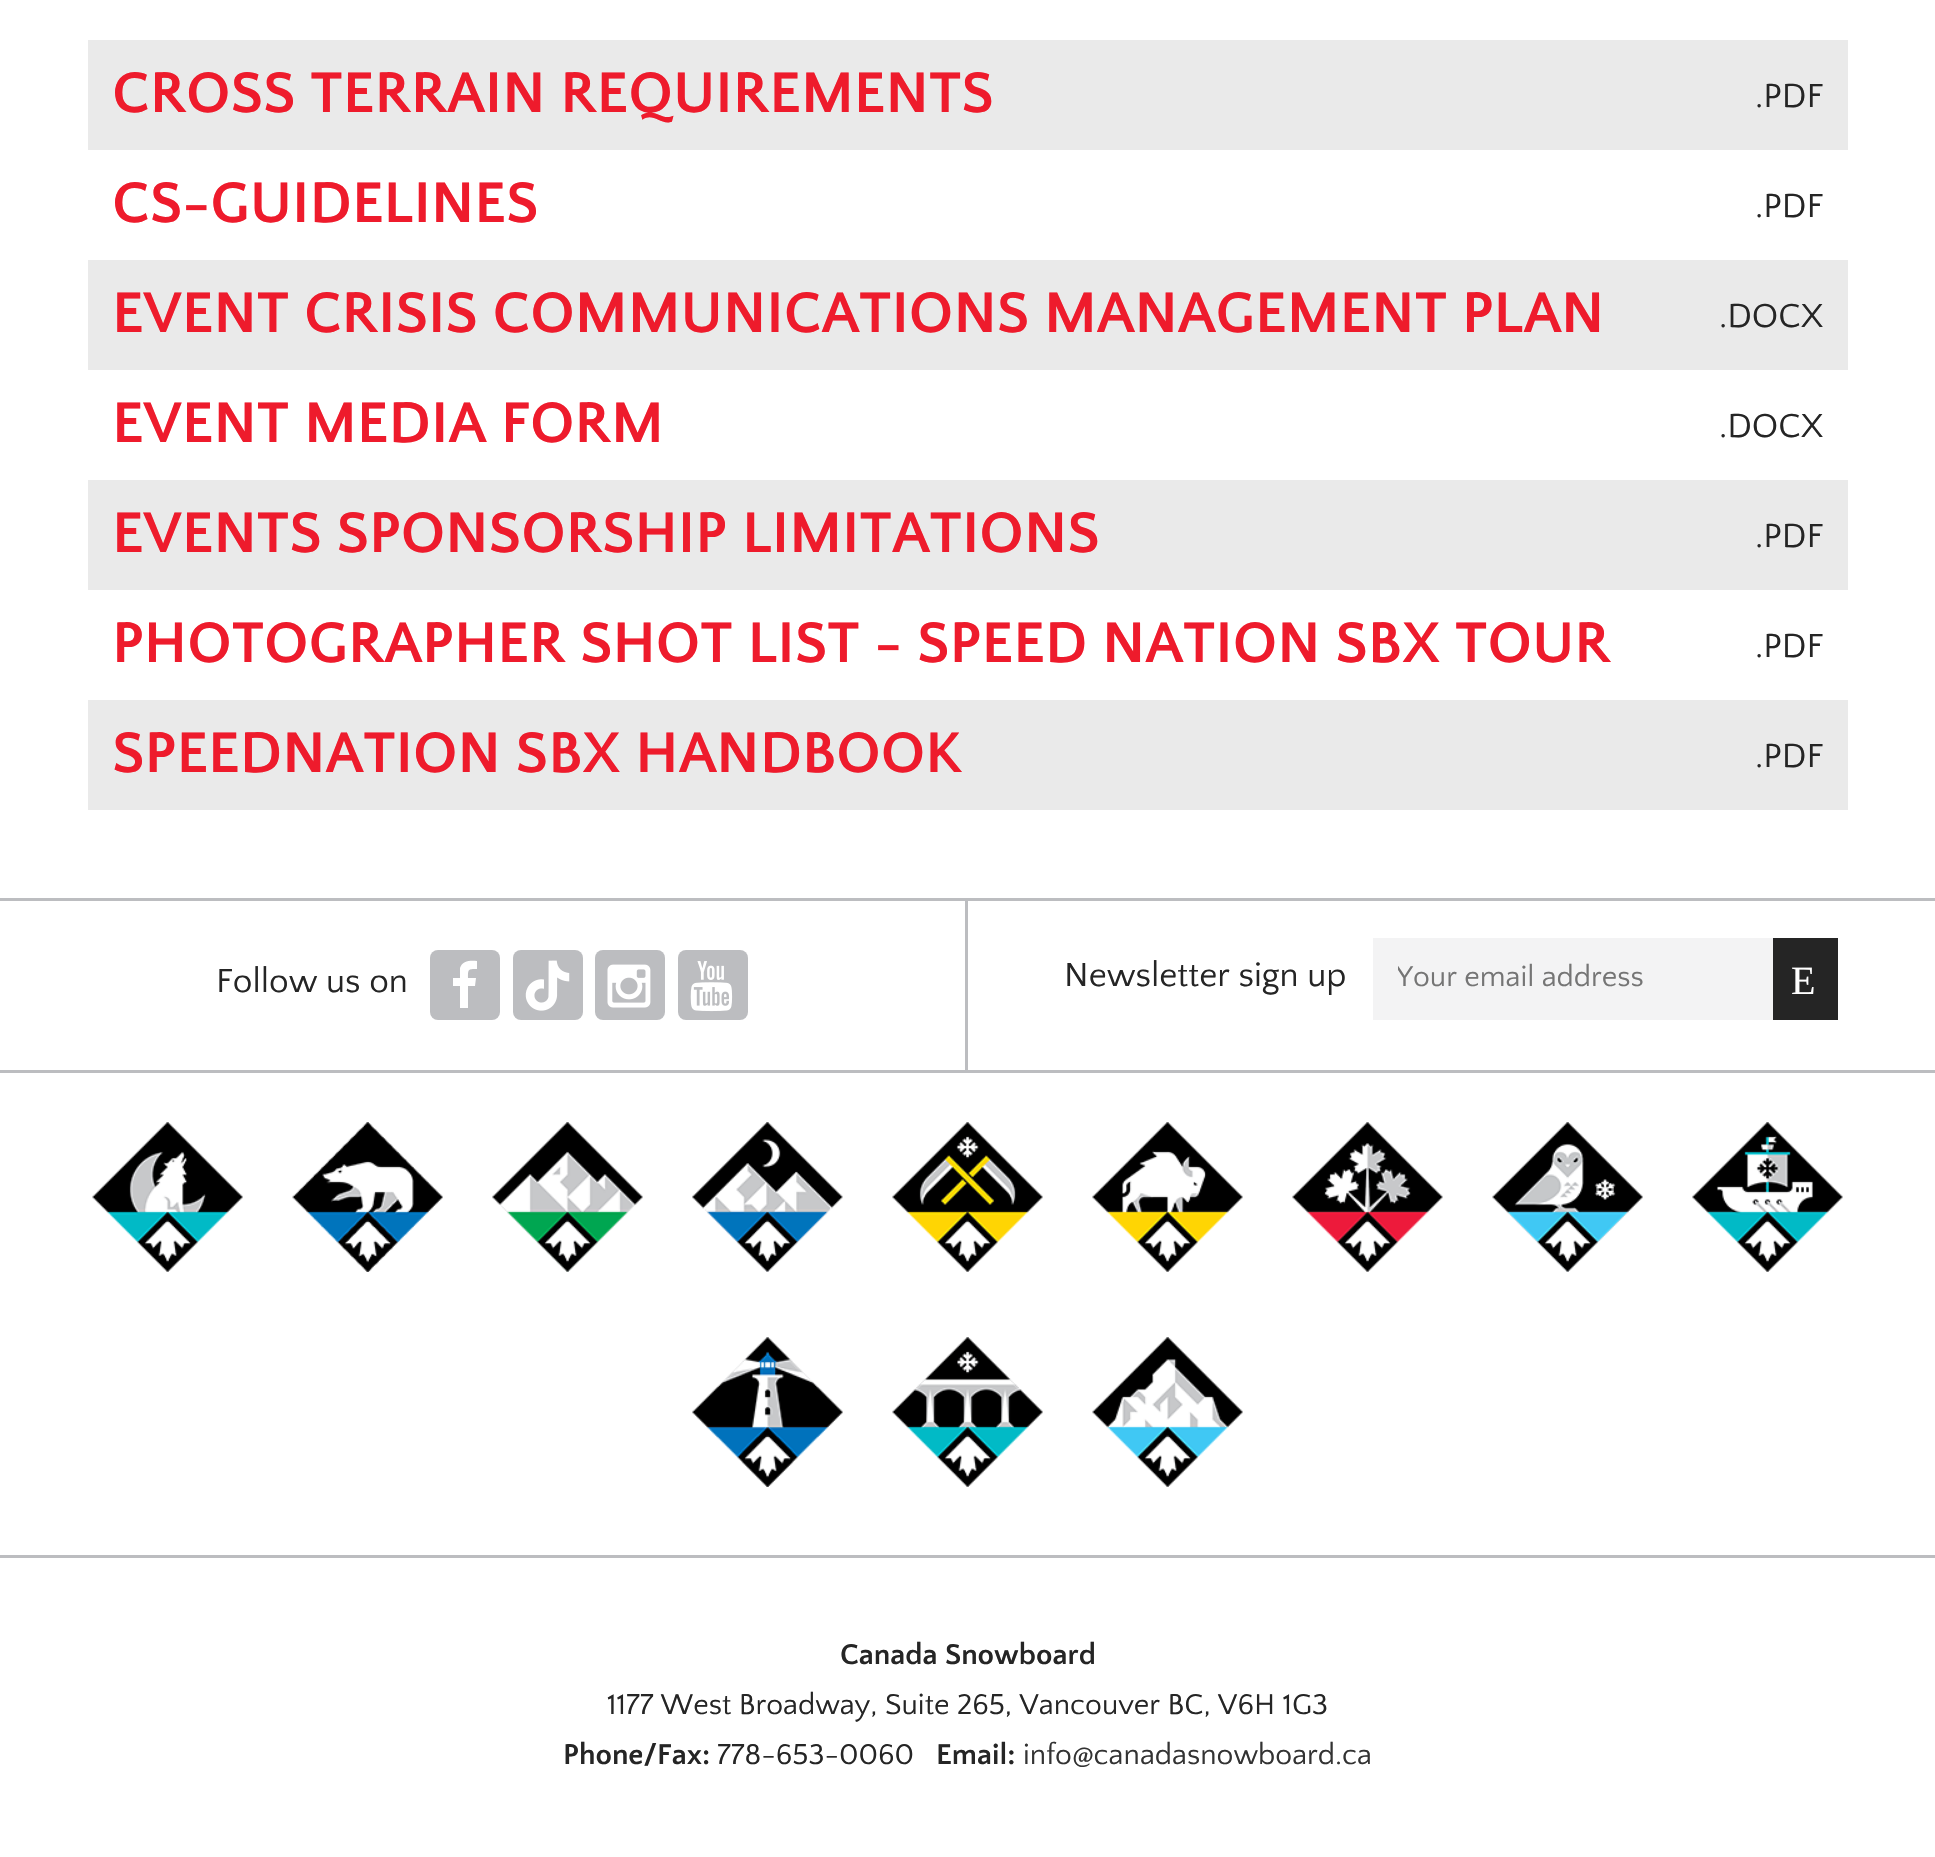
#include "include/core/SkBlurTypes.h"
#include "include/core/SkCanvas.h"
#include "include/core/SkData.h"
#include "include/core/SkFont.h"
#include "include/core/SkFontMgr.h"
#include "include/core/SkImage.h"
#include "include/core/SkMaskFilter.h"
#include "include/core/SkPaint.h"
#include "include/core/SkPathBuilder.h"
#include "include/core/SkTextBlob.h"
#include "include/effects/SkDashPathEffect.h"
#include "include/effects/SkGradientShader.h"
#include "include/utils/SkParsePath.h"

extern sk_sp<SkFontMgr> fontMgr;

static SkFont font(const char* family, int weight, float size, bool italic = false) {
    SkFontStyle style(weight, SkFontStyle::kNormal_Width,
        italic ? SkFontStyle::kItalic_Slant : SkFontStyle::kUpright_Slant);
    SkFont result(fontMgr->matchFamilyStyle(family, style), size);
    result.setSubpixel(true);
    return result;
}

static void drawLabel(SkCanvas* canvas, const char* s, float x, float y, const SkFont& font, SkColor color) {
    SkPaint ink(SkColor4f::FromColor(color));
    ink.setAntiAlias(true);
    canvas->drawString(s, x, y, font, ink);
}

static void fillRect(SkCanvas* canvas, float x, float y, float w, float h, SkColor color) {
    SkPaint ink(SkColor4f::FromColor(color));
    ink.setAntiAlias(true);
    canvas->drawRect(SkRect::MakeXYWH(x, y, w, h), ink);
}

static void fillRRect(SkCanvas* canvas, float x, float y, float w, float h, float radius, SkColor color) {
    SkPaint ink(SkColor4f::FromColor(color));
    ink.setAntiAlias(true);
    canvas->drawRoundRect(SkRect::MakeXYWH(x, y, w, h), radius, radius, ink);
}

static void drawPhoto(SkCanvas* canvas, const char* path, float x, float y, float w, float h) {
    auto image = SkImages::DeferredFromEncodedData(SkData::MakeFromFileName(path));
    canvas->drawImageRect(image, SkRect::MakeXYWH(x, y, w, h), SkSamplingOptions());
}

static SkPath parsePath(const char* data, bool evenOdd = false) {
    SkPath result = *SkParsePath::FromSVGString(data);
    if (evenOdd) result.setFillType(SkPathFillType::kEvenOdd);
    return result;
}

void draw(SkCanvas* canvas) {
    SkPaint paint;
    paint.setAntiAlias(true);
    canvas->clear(0xFFFFFFFF);
    fillRect(canvas, 88, 40, 1760, 110, 0xFFEAEAEA);
    SkFont font1 = font("Quattrocento Sans", 700, 60);
    drawLabel(canvas, "CROSS TERRAIN REQUIREMENTS", 112, 112, font1, 0xFFEE1B2C);
    SkFont font2 = font("Quattrocento Sans", 400, 35);
    drawLabel(canvas, ".PDF", 1755, 107, font2, 0xFF252525);
    drawLabel(canvas, "CS-GUIDELINES", 112, 222, font1, 0xFFEE1B2C);
    drawLabel(canvas, ".PDF", 1755, 217, font2, 0xFF252525);
    fillRect(canvas, 88, 260, 1760, 110, 0xFFEAEAEA);
    drawLabel(canvas, "EVENT CRISIS COMMUNICATIONS MANAGEMENT PLAN", 112, 332, font1, 0xFFEE1B2C);
    drawLabel(canvas, ".DOCX", 1719, 327, font2, 0xFF252525);
    drawLabel(canvas, "EVENT MEDIA FORM", 112, 442, font1, 0xFFEE1B2C);
    drawLabel(canvas, ".DOCX", 1719, 437, font2, 0xFF252525);
    fillRect(canvas, 88, 480, 1760, 110, 0xFFEAEAEA);
    drawLabel(canvas, "EVENTS SPONSORSHIP LIMITATIONS", 112, 552, font1, 0xFFEE1B2C);
    drawLabel(canvas, ".PDF", 1755, 547, font2, 0xFF252525);
    drawLabel(canvas, "PHOTOGRAPHER SHOT LIST - SPEED NATION SBX TOUR", 112, 662, font1, 0xFFEE1B2C);
    drawLabel(canvas, ".PDF", 1755, 657, font2, 0xFF252525);
    fillRect(canvas, 88, 700, 1760, 110, 0xFFEAEAEA);
    drawLabel(canvas, "SPEEDNATION SBX HANDBOOK", 112, 772, font1, 0xFFEE1B2C);
    drawLabel(canvas, ".PDF", 1755, 767, font2, 0xFF252525);
    fillRect(canvas, 0, 898, 1935, 3, 0xFFBCBDC0);
    fillRect(canvas, 965, 898, 3, 175, 0xFFBCBDC0);
    fillRect(canvas, 0, 1070, 1935, 3, 0xFFBCBDC0);
    drawLabel(canvas, "Follow us on", 216, 992, font2, 0xFF252525);
    fillRRect(canvas, 430, 950, 70, 70, 8, 0xFFBCBDC0);
    paint.setColor(0xFFFFFFFF);
    canvas->drawPath(parsePath("M477 961V969C468 969 468 969 468 978H476L475 986H468V1008H460V986H453V978H460V968C462 961 470 960 477 961Z"), paint);
    fillRRect(canvas, 513, 950, 70, 70, 8, 0xFFBCBDC0);
    drawPhoto(canvas, "assets/img1.png", 525, 960, 45, 51);
    fillRRect(canvas, 595, 950, 70, 70, 8, 0xFFBCBDC0);
    drawPhoto(canvas, "assets/img2.png", 607, 964, 44, 44);
    fillRRect(canvas, 678, 950, 70, 70, 8, 0xFFBCBDC0);
    drawPhoto(canvas, "assets/img3.png", 690, 961, 43, 51);
    drawLabel(canvas, "Newsletter sign up", 1064, 986, font2, 0xFF252525);
    fillRect(canvas, 1373, 938, 400, 82, 0xFFF3F3F4);
    canvas->save();
    canvas->clipRect(SkRect::MakeXYWH(1398, 963, 350, 32));
    SkFont font3 = font("Quattrocento Sans", 400, 30);
    drawLabel(canvas, "Your email address", 1396, 986, font3, 0xFF757575);
    canvas->restore();
    fillRect(canvas, 1773, 938, 65, 82, 0xFF252525);
    SkFont font4 = font("Liberation Serif", 400, 40);
    drawLabel(canvas, "E", 1791, 994, font4, 0xFFFFFFFF);
    fillRect(canvas, 0, 1555, 1935, 3, 0xFFBCBDC0);
    drawPhoto(canvas, "assets/img4.png", 92, 1122, 151, 150);
    drawPhoto(canvas, "assets/img5.png", 292, 1122, 151, 150);
    drawPhoto(canvas, "assets/img6.png", 492, 1122, 151, 150);
    drawPhoto(canvas, "assets/img7.png", 692, 1122, 151, 150);
    drawPhoto(canvas, "assets/img8.png", 892, 1122, 151, 150);
    drawPhoto(canvas, "assets/img9.png", 1092, 1122, 151, 150);
    drawPhoto(canvas, "assets/img10.png", 1292, 1122, 151, 150);
    drawPhoto(canvas, "assets/img11.png", 1492, 1122, 151, 150);
    drawPhoto(canvas, "assets/img12.png", 1692, 1122, 151, 150);
    drawPhoto(canvas, "assets/img13.png", 692, 1337, 151, 150);
    drawPhoto(canvas, "assets/img14.png", 892, 1337, 151, 150);
    drawPhoto(canvas, "assets/img15.png", 1092, 1337, 151, 150);
    SkFont font5 = font("Quattrocento Sans", 700, 30);
    drawLabel(canvas, "Canada Snowboard", 840, 1664, font5, 0xFF252525);
    drawLabel(canvas, "1177 West Broadway, Suite 265, Vancouver BC, V6H 1G3", 607, 1714, font3, 0xFF252525);
    drawLabel(canvas, "Phone/Fax:", 563, 1764, font5, 0xFF252525);
    drawLabel(canvas, "778-653-0060", 717, 1764, font3, 0xFF252525);
    drawLabel(canvas, "Email:", 936, 1764, font5, 0xFF252525);
    drawLabel(canvas, "info@canadasnowboard.ca", 1023, 1764, font3, 0xFF333333);
}
